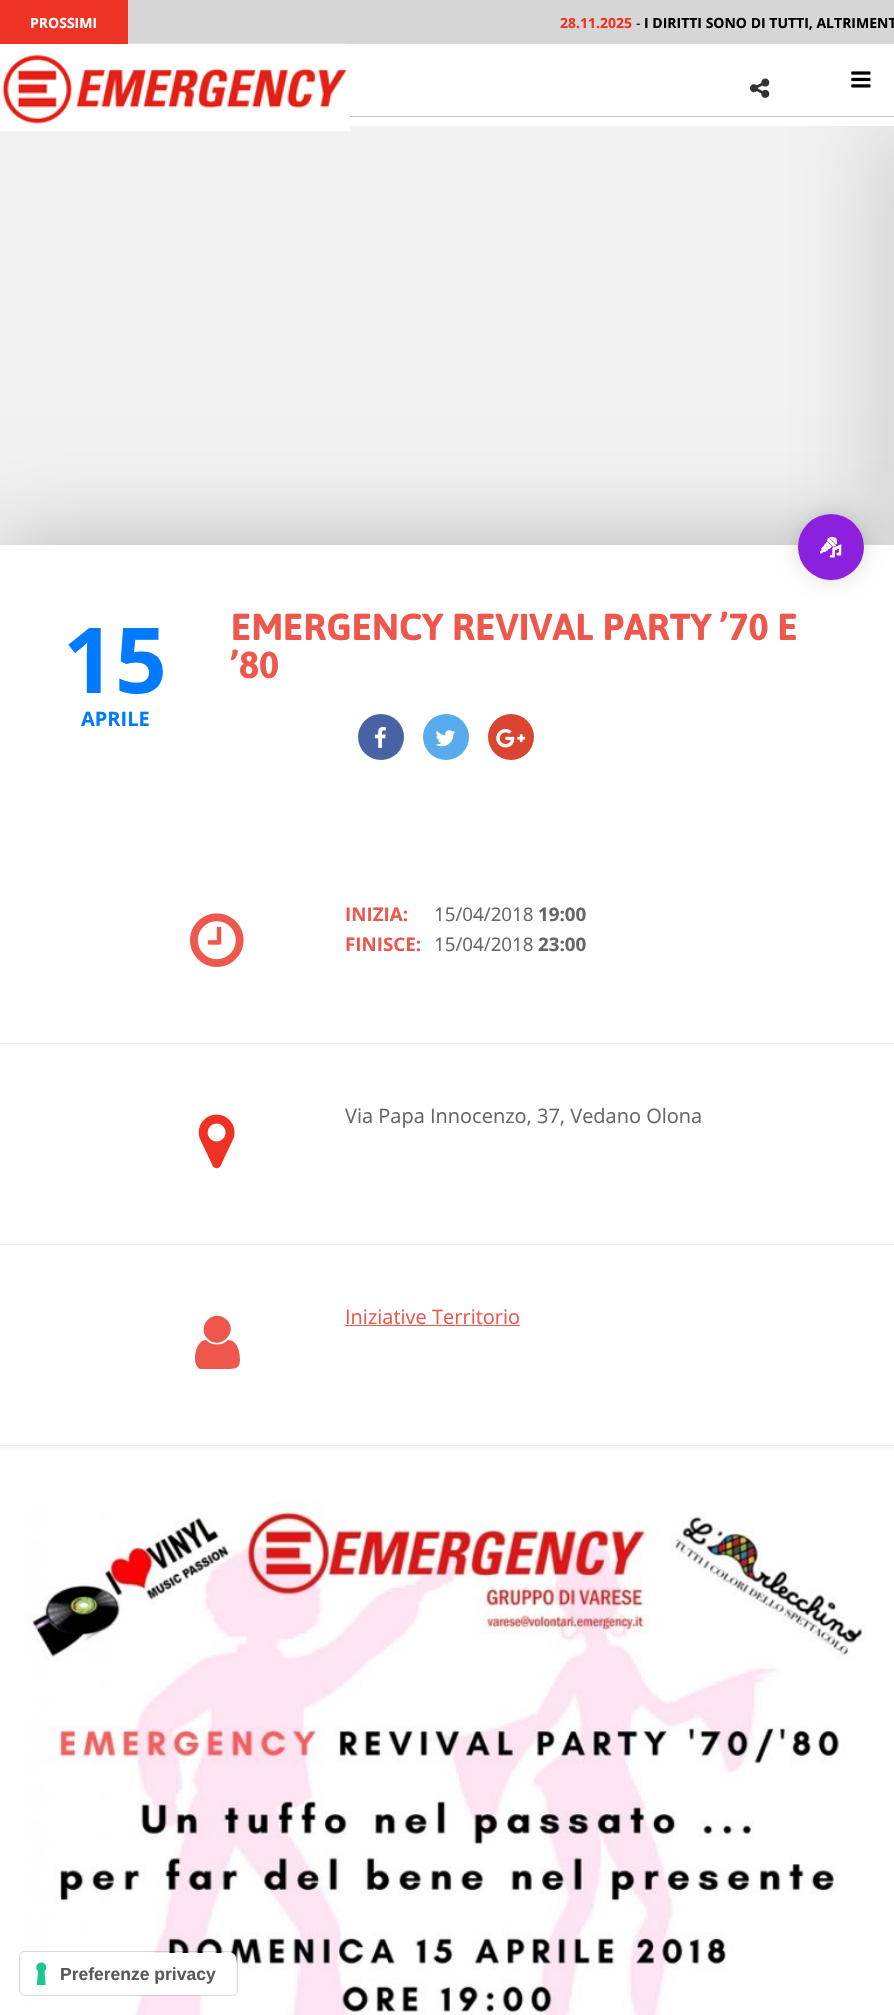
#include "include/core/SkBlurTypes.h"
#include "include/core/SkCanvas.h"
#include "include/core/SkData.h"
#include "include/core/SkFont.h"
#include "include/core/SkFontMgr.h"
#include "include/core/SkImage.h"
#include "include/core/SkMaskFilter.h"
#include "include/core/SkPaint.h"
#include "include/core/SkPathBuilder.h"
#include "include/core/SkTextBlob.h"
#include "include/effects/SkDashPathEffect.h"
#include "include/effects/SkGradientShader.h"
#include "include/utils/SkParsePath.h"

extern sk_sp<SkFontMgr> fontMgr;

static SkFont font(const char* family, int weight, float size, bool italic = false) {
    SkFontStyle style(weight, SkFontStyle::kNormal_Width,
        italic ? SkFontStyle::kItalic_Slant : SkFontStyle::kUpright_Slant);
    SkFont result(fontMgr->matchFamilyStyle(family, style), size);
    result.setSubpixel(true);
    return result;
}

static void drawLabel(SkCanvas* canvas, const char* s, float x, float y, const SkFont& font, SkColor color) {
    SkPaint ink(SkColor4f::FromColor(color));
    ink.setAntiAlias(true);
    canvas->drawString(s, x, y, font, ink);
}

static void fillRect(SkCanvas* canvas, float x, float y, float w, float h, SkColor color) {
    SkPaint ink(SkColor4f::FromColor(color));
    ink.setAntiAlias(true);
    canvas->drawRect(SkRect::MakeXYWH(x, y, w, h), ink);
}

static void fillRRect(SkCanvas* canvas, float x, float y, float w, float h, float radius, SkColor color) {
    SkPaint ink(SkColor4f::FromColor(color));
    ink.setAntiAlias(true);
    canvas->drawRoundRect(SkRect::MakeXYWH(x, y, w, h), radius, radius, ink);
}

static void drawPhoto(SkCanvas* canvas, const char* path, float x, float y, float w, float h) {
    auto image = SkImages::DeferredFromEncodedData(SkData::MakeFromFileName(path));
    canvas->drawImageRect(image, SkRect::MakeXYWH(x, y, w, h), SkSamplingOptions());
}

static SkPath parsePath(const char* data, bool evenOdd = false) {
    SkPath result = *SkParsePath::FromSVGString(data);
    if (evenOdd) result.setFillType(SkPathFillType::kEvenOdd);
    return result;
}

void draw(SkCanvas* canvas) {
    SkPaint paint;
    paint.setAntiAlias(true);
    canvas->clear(0xFFFFFFFF);
    fillRect(canvas, 0, 126, 894, 419, 0xFFF2F2F2);
    canvas->save();
    canvas->clipRect(SkRect::MakeXYWH(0, 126, 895, 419));
    paint.setColor(0x66000000);
    paint.setMaskFilter(SkMaskFilter::MakeBlur(kNormal_SkBlurStyle, 44));
    canvas->drawRect(SkRect::MakeXYWH(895, 126, 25, 419), paint);
    paint.setMaskFilter(nullptr);
    canvas->restore();
    fillRect(canvas, 350, 116, 544, 1, 0xFFC6C6C6);
    fillRect(canvas, 128, 0, 766, 44, 0xFFD6D6D6);
    drawPhoto(canvas, "assets/img1.png", 0, 43, 350, 88);
    fillRect(canvas, 0, 0, 128, 44, 0xFFEE3224);
    SkFont font1 = font("Open Sans", 700, 14);
    drawLabel(canvas, "PROSSIMI", 30, 28, font1, 0xFFFFFFFF);
    drawLabel(canvas, "28.11.2025", 560, 28, font1, 0xFFEE3224);
    SkFont font2 = font("Open Sans", 400, 14);
    drawLabel(canvas, "-", 636, 28, font2, 0xFF000000);
    drawLabel(canvas, "I DIRITTI SONO DI TUTTI, ALTRIMENT", 644, 28, font1, 0xFF000000);
    drawPhoto(canvas, "assets/img2.png", 750, 78, 20, 20);
    drawPhoto(canvas, "assets/img3.png", 851, 71, 20, 17);
    drawPhoto(canvas, "assets/img8.png", 190, 913, 54, 54);
    canvas->save();
    canvas->clipRect(SkRect::MakeXYWH(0, 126, 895, 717));
    paint.setColor(0x40000000);
    paint.setMaskFilter(SkMaskFilter::MakeBlur(kNormal_SkBlurStyle, 44));
    canvas->drawRect(SkRect::MakeXYWH(0, 545, 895, 298), paint);
    paint.setMaskFilter(nullptr);
    canvas->restore();
    fillRect(canvas, 0, 545, 894, 298, 0xFFFFFFFF);
    paint.setColor(0x26000000);
    paint.setMaskFilter(SkMaskFilter::MakeBlur(kNormal_SkBlurStyle, 9.5f));
    canvas->drawRoundRect(SkRect::MakeXYWH(798, 514, 66, 66), 33, 33, paint);
    paint.setMaskFilter(nullptr);
    paint.setColor(0xFF8B20DD);
    canvas->drawCircle(831, 547, 33, paint);
    drawPhoto(canvas, "assets/img4.png", 820, 537, 22, 21);
    SkFont font3 = font("Open Sans", 700, 91);
    drawLabel(canvas, "15", 63, 693, font3, 0xFF007BFF);
    SkFont font4 = font("Open Sans", 700, 20);
    drawLabel(canvas, "APRILE", 81, 726, font4, 0xFF007BFF);
    SkFont font5 = font("Asap", 700, 37.5f);
    drawLabel(canvas, "EMERGENCY REVIVAL PARTY ’70 E", 231, 640, font5, 0xFFED574C);
    drawLabel(canvas, "’80", 231, 678, font5, 0xFFED574C);
    paint.setColor(0xFF4962A4);
    canvas->drawCircle(381, 737, 23, paint);
    drawPhoto(canvas, "assets/img5.png", 374, 727, 12, 21);
    paint.setColor(0xFF58ACEC);
    canvas->drawCircle(446, 737, 23, paint);
    drawPhoto(canvas, "assets/img6.png", 435, 730, 21, 17);
    paint.setColor(0xFFDA4531);
    canvas->drawCircle(511, 737, 23, paint);
    drawPhoto(canvas, "assets/img7.png", 496, 729, 30, 19);
    fillRect(canvas, 0, 1043, 894, 1, 0xFFEDEDED);
    SkFont font6 = font("Open Sans", 700, 18.75f);
    drawLabel(canvas, "INIZIA:", 345, 921, font6, 0xFFED574C);
    SkFont font7 = font("Open Sans", 400, 18.75f);
    drawLabel(canvas, "15/04/2018", 434, 921, font7, 0xFF666666);
    drawLabel(canvas, "19:00", 538, 921, font6, 0xFF666666);
    drawLabel(canvas, "FINISCE:", 345, 951, font6, 0xFFED574C);
    drawLabel(canvas, "15/04/2018", 434, 951, font7, 0xFF666666);
    drawLabel(canvas, "23:00", 538, 951, font6, 0xFF666666);
    fillRect(canvas, 0, 1244, 894, 1, 0xFFEDEDED);
    drawPhoto(canvas, "assets/img9.png", 198, 1114, 37, 55);
    SkFont font8 = font("Open Sans", 400, 20);
    drawLabel(canvas, "Via Papa Innocenzo, 37, Vedano Olona", 345, 1123, font8, 0xFF666666);
    paint.setColor(0xFFF9F9F9);
    canvas->drawPath(parsePath("M0 1446V1451H894V1250V1446Z"), paint);
    fillRect(canvas, 0, 1445, 894, 1, 0xFFEDEDED);
    paint.setColor(0xFFED574C);
    canvas->drawPath(parsePath("M240 1360C240 1369 234 1369 227 1369H200C191 1365 195 1340 206 1340C212 1346 222 1346 228 1340C238 1340 240 1353 240 1360ZM227 1320C239 1332 220 1351 208 1339C195 1326 214 1307 227 1320Z"), paint);
    drawLabel(canvas, "Iniziative Territorio", 345, 1324, font8, 0xFFED574C);
    fillRect(canvas, 345, 1325, 175, 1, 0xFFED574C);
    drawPhoto(canvas, "assets/img10.png", 25, 1502, 840, 513);
    paint.setStroke(true);
    paint.setStrokeWidth(1);
    paint.setColor(0x26000000);
    canvas->drawRoundRect(SkRect::MakeXYWH(19.5f, 1951.5f, 218, 44), 5.5f, 5.5f, paint);
    fillRRect(canvas, 20, 1953, 216, 42, 5, 0xFFFFFFFF);
    drawPhoto(canvas, "assets/img11.png", 36, 1962, 11, 23);
    SkFont font9 = font("Liberation Sans", 700, 17.5f);
    drawLabel(canvas, "Preferenze privacy", 60, 1980, font9, 0xFF595959);
}
